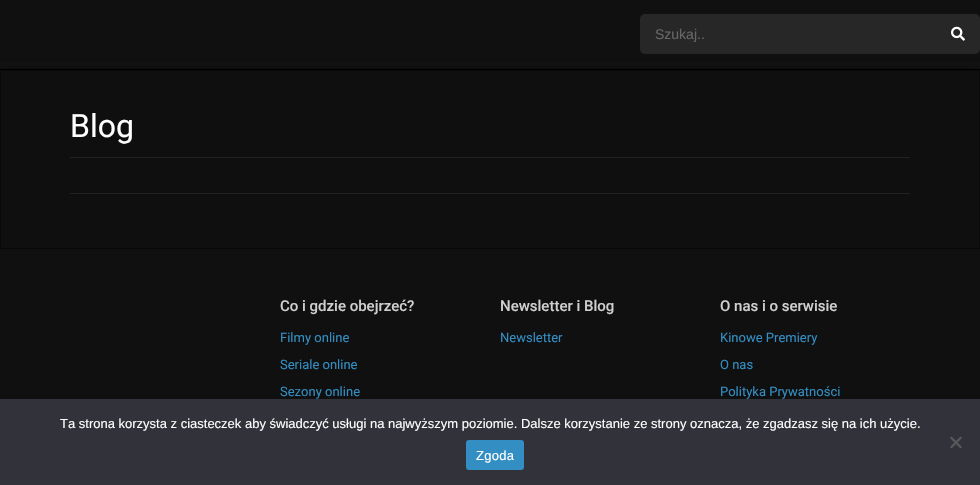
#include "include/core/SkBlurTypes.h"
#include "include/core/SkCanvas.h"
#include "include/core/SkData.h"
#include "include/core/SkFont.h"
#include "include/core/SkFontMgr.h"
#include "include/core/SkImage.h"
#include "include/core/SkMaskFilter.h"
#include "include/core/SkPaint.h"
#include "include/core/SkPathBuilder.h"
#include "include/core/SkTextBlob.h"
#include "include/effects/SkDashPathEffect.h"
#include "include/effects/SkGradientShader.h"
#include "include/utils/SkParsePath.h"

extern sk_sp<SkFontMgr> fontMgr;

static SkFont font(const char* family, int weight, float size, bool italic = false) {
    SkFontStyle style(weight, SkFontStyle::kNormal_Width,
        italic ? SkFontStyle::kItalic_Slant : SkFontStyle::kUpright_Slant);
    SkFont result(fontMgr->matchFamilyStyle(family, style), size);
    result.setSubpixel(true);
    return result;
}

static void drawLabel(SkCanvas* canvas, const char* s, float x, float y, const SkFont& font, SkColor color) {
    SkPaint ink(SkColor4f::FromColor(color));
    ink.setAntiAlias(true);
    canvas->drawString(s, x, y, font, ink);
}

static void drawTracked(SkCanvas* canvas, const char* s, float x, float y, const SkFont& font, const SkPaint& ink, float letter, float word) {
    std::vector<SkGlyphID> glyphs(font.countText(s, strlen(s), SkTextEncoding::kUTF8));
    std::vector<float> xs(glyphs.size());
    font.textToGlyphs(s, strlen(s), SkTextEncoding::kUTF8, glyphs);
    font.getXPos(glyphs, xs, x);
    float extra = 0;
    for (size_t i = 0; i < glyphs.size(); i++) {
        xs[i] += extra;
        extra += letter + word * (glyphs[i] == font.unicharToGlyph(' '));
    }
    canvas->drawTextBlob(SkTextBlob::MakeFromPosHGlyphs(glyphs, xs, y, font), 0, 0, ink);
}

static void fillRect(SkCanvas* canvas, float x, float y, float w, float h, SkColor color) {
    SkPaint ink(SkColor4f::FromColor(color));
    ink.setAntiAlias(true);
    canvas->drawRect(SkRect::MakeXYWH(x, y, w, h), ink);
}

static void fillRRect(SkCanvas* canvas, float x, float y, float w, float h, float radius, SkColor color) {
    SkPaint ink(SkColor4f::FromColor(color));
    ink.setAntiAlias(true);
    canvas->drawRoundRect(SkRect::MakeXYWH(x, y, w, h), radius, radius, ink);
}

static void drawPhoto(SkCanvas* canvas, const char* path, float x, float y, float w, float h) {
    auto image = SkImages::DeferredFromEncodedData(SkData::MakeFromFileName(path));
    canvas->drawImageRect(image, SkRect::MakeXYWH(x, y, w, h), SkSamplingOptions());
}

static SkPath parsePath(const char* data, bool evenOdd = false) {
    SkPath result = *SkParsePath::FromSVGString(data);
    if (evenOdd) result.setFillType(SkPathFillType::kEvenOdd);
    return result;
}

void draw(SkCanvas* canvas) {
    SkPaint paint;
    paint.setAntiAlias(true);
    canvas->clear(0xFF121212);
    paint.setColor(0xB3000000);
    paint.setMaskFilter(SkMaskFilter::MakeBlur(kNormal_SkBlurStyle, 4));
    canvas->drawRect(SkRect::MakeXYWH(0, 71, 980, 179), paint);
    paint.setMaskFilter(nullptr);
    fillRect(canvas, 0, 0, 980, 62, 0xE60F0F0F);
    fillRect(canvas, 0, 69, 980, 1, 0xFF000000);
    fillRRect(canvas, 640, 14, 340, 40, 5, 0xFF272727);
    SkFont font1 = font("Liberation Sans", 400, 14);
    drawLabel(canvas, "Szukaj..", 655, 39, font1, 0xFF686868);
    drawPhoto(canvas, "assets/img1.png", 951, 26, 14, 15);
    paint.setColor(0xFF0F0F0F);
    canvas->drawRect(SkRect::MakeXYWH(0.5f, 70.5f, 979, 178), paint);
    paint.setStroke(true);
    paint.setStrokeWidth(1);
    paint.setColor(0xFF090909);
    canvas->drawRect(SkRect::MakeXYWH(0.5f, 70.5f, 979, 178), paint);
    fillRect(canvas, 70, 157, 840, 1, 0xFF222222);
    SkFont font2 = font("Roboto", 400, 32);
    drawLabel(canvas, "Blog", 70, 137, font2, 0xFFFFFFFF);
    fillRect(canvas, 70, 193, 840, 1, 0xFF222222);
    fillRect(canvas, 0, 249, 980, 150, 0xE60F0F0F);
    SkFont font3 = font("Roboto", 500, 15);
    drawLabel(canvas, "Co i gdzie obejrzeć?", 280, 311, font3, 0xFFCFCFCF);
    SkFont font4 = font("Roboto", 400, 13);
    drawLabel(canvas, "Filmy online", 280, 342, font4, 0xFF338EC3);
    drawLabel(canvas, "Seriale online", 280, 369, font4, 0xFF338EC3);
    drawLabel(canvas, "Sezony online", 280, 396, font4, 0xFF338EC3);
    drawLabel(canvas, "Newsletter i Blog", 500, 311, font3, 0xFFCFCFCF);
    drawLabel(canvas, "Newsletter", 500, 342, font4, 0xFF338EC3);
    drawLabel(canvas, "O nas i o serwisie", 720, 311, font3, 0xFFCFCFCF);
    drawLabel(canvas, "Kinowe Premiery", 720, 342, font4, 0xFF338EC3);
    drawLabel(canvas, "O nas", 720, 369, font4, 0xFF338EC3);
    drawLabel(canvas, "Polityka Prywatności", 720, 396, font4, 0xFF338EC3);
    fillRect(canvas, 0, 399, 980, 86, 0xFF32323A);
    SkFont font5 = font("Liberation Sans", 400, 13);
    drawLabel(canvas, "Ta strona korzysta z ciasteczek aby świadczyć usługi na najwyższym poziomie. Dalsze korzystanie ze strony oznacza, że zgadzasz się na ich użycie.", 60, 428, font5, 0xFFFFFFFF);
    paint.setStroke(false);
    paint.setColor(0xFF59595D);
    canvas->drawPath(parsePath("M960.5 436.5L962 438L951.5 448.5L950 447Z"), paint);
    canvas->drawPath(parsePath("M950 438L951.5 436.5L962 447L960.5 448.5Z"), paint);
    fillRRect(canvas, 466, 440, 58, 30, 3, 0xFF338EC3);
    paint.setColor(0xFFFFFFFF);
    drawTracked(canvas, "Zgoda", 476, 460, font5, paint, 0.25f, 0);
}
